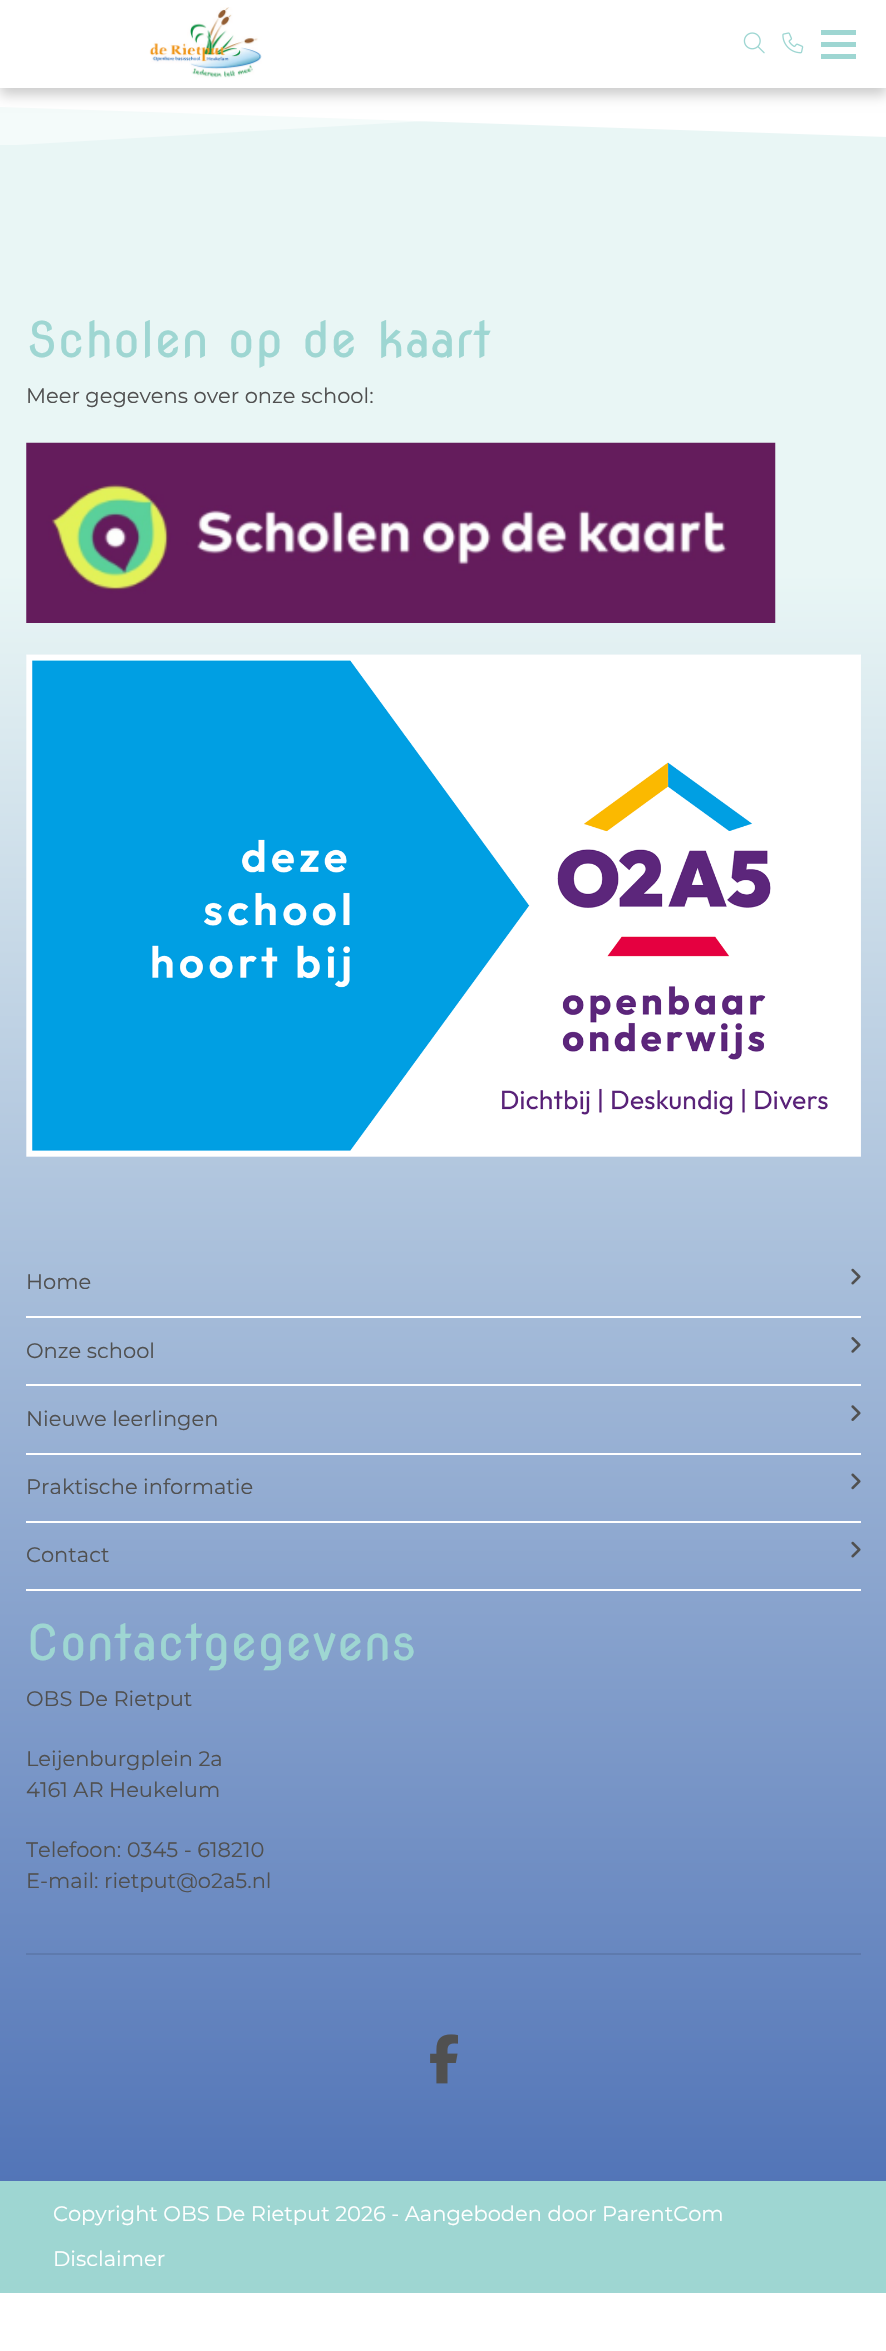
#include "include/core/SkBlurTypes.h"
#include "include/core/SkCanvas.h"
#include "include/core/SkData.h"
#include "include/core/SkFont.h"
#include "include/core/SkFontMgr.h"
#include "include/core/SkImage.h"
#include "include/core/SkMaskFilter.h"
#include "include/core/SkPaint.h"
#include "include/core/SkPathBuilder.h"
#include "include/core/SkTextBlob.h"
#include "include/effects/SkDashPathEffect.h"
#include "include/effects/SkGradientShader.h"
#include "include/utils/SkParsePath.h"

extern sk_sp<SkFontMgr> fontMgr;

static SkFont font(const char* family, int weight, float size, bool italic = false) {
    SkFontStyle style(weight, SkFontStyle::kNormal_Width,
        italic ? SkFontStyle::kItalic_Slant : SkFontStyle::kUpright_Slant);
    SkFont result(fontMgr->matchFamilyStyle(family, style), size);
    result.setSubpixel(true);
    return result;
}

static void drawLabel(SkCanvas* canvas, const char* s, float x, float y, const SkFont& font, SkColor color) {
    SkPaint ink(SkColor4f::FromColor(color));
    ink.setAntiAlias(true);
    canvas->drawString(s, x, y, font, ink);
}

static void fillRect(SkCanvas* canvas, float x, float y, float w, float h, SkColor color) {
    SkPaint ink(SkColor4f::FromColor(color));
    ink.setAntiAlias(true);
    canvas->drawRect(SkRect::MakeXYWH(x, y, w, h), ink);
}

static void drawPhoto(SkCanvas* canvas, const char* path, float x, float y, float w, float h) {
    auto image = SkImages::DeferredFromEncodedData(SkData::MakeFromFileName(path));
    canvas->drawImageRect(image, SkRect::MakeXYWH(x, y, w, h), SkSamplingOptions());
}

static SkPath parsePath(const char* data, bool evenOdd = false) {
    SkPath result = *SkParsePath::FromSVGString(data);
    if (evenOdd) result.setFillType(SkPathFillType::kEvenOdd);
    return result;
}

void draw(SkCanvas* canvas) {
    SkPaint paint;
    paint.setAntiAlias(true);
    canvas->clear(0xFFFFFFFF);
    {
        const SkColor colors[] = {0xFF486CB3, 0xFFE9F6F5};
        const float stops[] = {0, 0.78f};
        const SkPoint ends[] = {{444, 2293}, {444, 88}};
        paint.setShader(SkGradientShader::MakeLinear(ends, colors, stops, 2, SkTileMode::kClamp));
        paint.setAlpha(255);
    }
    canvas->drawRect(SkRect::MakeXYWH(0, 107, 886, 2074), paint);
    canvas->save();
    canvas->clipRect(SkRect::MakeXYWH(0, 84, 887, 61));
    paint.setShader(nullptr);
    paint.setColor(0x80FFFFFF);
    canvas->drawPath(parsePath("M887 94L0 146V84H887Z"), paint);
    canvas->restore();
    paint.setColor(0xFFFFFFFF);
    canvas->drawPath(parsePath("M0 107L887 137V84H0Z"), paint);
    canvas->save();
    canvas->clipPath(parsePath("M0 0H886V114H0ZM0 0H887V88H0Z", true), true);
    paint.setColor(0x33000000);
    paint.setMaskFilter(SkMaskFilter::MakeBlur(kNormal_SkBlurStyle, 6));
    canvas->drawRect(SkRect::MakeXYWH(0, 7, 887, 88), paint);
    paint.setMaskFilter(nullptr);
    canvas->restore();
    drawPhoto(canvas, "assets/img1.png", 149, 7, 113, 71);
    drawPhoto(canvas, "assets/img2.png", 743, 32, 22, 22);
    drawPhoto(canvas, "assets/img3.png", 782, 32, 22, 22);
    fillRect(canvas, 821, 42, 35, 5, 0xFF9ED6D2);
    fillRect(canvas, 821, 30, 35, 5, 0xFF9ED6D2);
    fillRect(canvas, 821, 54, 35, 5, 0xFF9ED6D2);
    SkFont font1 = font("Nova Round", 400, 49);
    drawLabel(canvas, "Scholen op de kaart", 26, 357, font1, 0xFF9ED6D2);
    SkFont font2 = font("Montserrat", 100, 21);
    drawLabel(canvas, "Meer gegevens over onze school:", 26, 403, font2, 0xFF505050);
    drawPhoto(canvas, "assets/img4.png", 26, 442, 750, 181);
    drawPhoto(canvas, "assets/img5.png", 26, 654, 835, 503);
    fillRect(canvas, 26, 1316, 835, 2, 0xFFFFFFFF);
    drawLabel(canvas, "Home", 26, 1289, font2, 0xFF505050);
    drawPhoto(canvas, "assets/img6.png", 851, 1268, 10, 17);
    fillRect(canvas, 26, 1384, 835, 2, 0xFFFFFFFF);
    drawLabel(canvas, "Onze school", 26, 1358, font2, 0xFF505050);
    drawPhoto(canvas, "assets/img7.png", 851, 1337, 10, 16);
    fillRect(canvas, 26, 1453, 835, 2, 0xFFFFFFFF);
    drawLabel(canvas, "Nieuwe leerlingen", 26, 1426, font2, 0xFF505050);
    drawPhoto(canvas, "assets/img8.png", 851, 1405, 10, 16);
    fillRect(canvas, 26, 1521, 835, 2, 0xFFFFFFFF);
    drawLabel(canvas, "Praktische informatie", 26, 1494, font2, 0xFF505050);
    drawPhoto(canvas, "assets/img9.png", 851, 1473, 10, 17);
    fillRect(canvas, 26, 1589, 835, 2, 0xFFFFFFFF);
    drawLabel(canvas, "Contact", 26, 1562, font2, 0xFF505050);
    drawPhoto(canvas, "assets/img10.png", 851, 1541, 10, 17);
    drawLabel(canvas, "Contactgegevens", 26, 1660, font1, 0xFF9ED6D2);
    drawLabel(canvas, "OBS De Rietput", 26, 1706, font2, 0xFF505050);
    drawLabel(canvas, "Leijenburgplein 2a", 26, 1766, font2, 0xFF505050);
    drawLabel(canvas, "4161 AR Heukelum", 26, 1797, font2, 0xFF505050);
    drawLabel(canvas, "Telefoon: 0345 - 618210", 26, 1857, font2, 0xFF505050);
    drawLabel(canvas, "E-mail: rietput@o2a5.nl", 26, 1888, font2, 0xFF505050);
    fillRect(canvas, 26, 1953, 835, 2, 0xFF5E7AAD);
    drawPhoto(canvas, "assets/img11.png", 430, 2034, 28, 50);
    fillRect(canvas, 0, 2181, 886, 112, 0xFF9ED6D2);
    drawLabel(canvas, "Copyright OBS De Rietput 2026 - Aangeboden door ParentCom", 53, 2221, font2, 0xFFFFFFFF);
    drawLabel(canvas, "Disclaimer", 53, 2266, font2, 0xFFFFFFFF);
}
